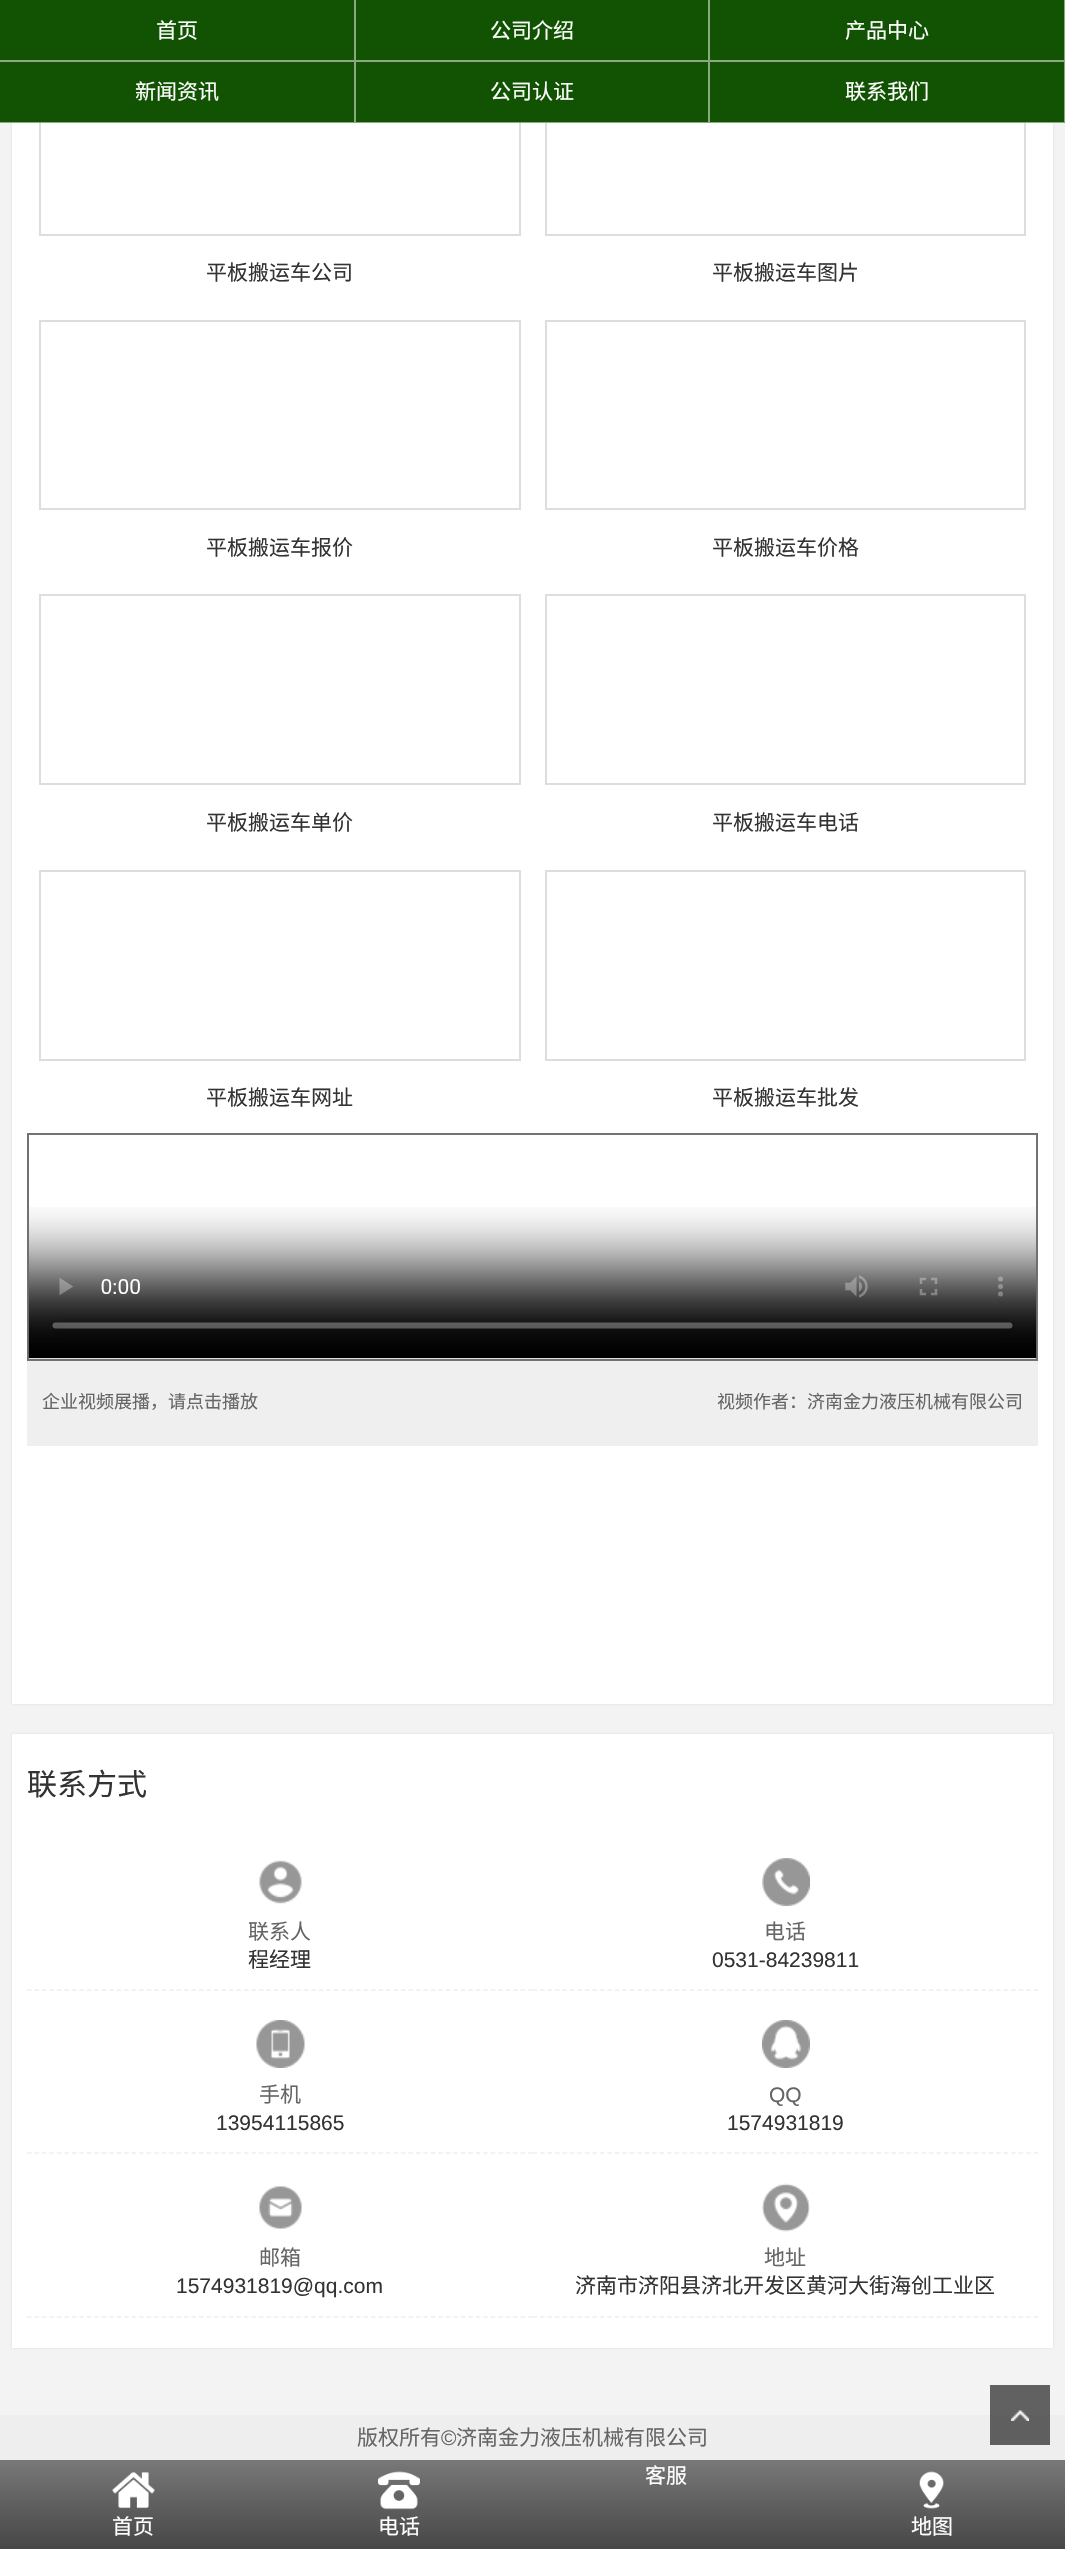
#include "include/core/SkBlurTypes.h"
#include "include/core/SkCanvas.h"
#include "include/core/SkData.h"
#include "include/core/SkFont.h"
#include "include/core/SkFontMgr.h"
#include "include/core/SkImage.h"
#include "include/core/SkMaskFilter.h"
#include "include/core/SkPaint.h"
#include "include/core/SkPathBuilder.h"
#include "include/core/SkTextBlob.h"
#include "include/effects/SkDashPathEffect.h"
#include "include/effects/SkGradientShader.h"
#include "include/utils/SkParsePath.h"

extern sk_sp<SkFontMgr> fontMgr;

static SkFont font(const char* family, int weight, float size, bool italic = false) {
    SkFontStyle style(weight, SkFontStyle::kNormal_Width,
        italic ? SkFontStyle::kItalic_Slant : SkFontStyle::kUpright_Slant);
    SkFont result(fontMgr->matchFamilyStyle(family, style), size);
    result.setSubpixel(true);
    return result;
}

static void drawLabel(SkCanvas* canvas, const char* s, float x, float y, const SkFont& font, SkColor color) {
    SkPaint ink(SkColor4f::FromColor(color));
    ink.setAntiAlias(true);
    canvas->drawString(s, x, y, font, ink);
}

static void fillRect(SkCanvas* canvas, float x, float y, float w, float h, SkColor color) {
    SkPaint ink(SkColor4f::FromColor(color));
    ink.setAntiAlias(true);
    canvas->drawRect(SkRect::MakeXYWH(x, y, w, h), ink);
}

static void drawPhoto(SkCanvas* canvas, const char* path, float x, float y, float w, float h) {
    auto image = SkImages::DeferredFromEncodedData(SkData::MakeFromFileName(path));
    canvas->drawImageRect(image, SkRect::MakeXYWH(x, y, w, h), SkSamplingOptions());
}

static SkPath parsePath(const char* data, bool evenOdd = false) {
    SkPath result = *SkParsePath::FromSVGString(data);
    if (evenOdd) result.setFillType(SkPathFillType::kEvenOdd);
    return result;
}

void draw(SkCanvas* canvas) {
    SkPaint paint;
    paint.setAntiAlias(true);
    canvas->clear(0xFFF3F3F3);
    paint.setColor(0x1A000000);
    paint.setMaskFilter(SkMaskFilter::MakeBlur(kNormal_SkBlurStyle, 1));
    canvas->drawRect(SkRect::MakeXYWH(12, -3, 1041, 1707), paint);
    paint.setMaskFilter(nullptr);
    fillRect(canvas, 12, 123, 1041, 1581, 0xFFFFFFFF);
    paint.setStroke(true);
    paint.setStrokeWidth(2);
    paint.setColor(0xFFDDDDDD);
    canvas->drawRect(SkRect::MakeXYWH(40, 46, 480, 189), paint);
    canvas->drawRect(SkRect::MakeXYWH(546, 46, 479, 189), paint);
    fillRect(canvas, 0, 0, 1065, 62, 0xFF125303);
    paint.setStroke(false);
    paint.setColor(0xFF89A981);
    canvas->drawPath(parsePath("M356 0V62L354 60V0Z"), paint);
    paint.setColor(0x80FFFFFF);
    canvas->drawPath(parsePath("M356 62H0V60H354Z"), paint);
    SkFont font1 = font("Noto Sans CJK SC", 400, 21);
    drawLabel(canvas, "首页", 156, 38, font1, 0xFFFFFFFF);
    paint.setColor(0xFF89A981);
    canvas->drawPath(parsePath("M710 0V62L708 60V0Z"), paint);
    paint.setColor(0x80FFFFFF);
    canvas->drawPath(parsePath("M710 62H356V60H708Z"), paint);
    drawLabel(canvas, "公司介绍", 490, 38, font1, 0xFFFFFFFF);
    paint.setColor(0xFF89A981);
    canvas->drawPath(parsePath("M1065 0V62L1064 60V0Z"), paint);
    paint.setColor(0x80FFFFFF);
    canvas->drawPath(parsePath("M1065 62H710V60H1064Z"), paint);
    drawLabel(canvas, "产品中心", 845, 38, font1, 0xFFFFFFFF);
    fillRect(canvas, 0, 62, 1065, 61, 0xFF125303);
    paint.setColor(0xFF89A981);
    canvas->drawPath(parsePath("M356 62V123L354 122V62Z"), paint);
    paint.setColor(0x80FFFFFF);
    canvas->drawPath(parsePath("M356 123H0V122H354Z"), paint);
    drawLabel(canvas, "新闻资讯", 135, 99, font1, 0xFFFFFFFF);
    paint.setColor(0xFF89A981);
    canvas->drawPath(parsePath("M710 62V123L708 122V62Z"), paint);
    paint.setColor(0x80FFFFFF);
    canvas->drawPath(parsePath("M710 123H356V122H708Z"), paint);
    drawLabel(canvas, "公司认证", 490, 99, font1, 0xFFFFFFFF);
    paint.setColor(0xFF89A981);
    canvas->drawPath(parsePath("M1065 62V123L1064 122V62Z"), paint);
    paint.setColor(0x80FFFFFF);
    canvas->drawPath(parsePath("M1065 123H710V122H1064Z"), paint);
    drawLabel(canvas, "联系我们", 845, 99, font1, 0xFFFFFFFF);
    fillRect(canvas, 990, 2385, 60, 30, 0xFF616161);
    drawLabel(canvas, "平板搬运车公司", 206, 280, font1, 0xFF333333);
    drawLabel(canvas, "平板搬运车图片", 712, 280, font1, 0xFF333333);
    paint.setStroke(true);
    paint.setColor(0xFFDDDDDD);
    canvas->drawRect(SkRect::MakeXYWH(40, 321, 480, 188), paint);
    drawLabel(canvas, "平板搬运车报价", 206, 555, font1, 0xFF333333);
    canvas->drawRect(SkRect::MakeXYWH(546, 321, 479, 188), paint);
    drawLabel(canvas, "平板搬运车价格", 712, 555, font1, 0xFF333333);
    canvas->drawRect(SkRect::MakeXYWH(40, 595, 480, 189), paint);
    drawLabel(canvas, "平板搬运车单价", 206, 830, font1, 0xFF333333);
    canvas->drawRect(SkRect::MakeXYWH(546, 595, 479, 189), paint);
    drawLabel(canvas, "平板搬运车电话", 712, 830, font1, 0xFF333333);
    canvas->drawRect(SkRect::MakeXYWH(40, 871, 480, 189), paint);
    drawLabel(canvas, "平板搬运车网址", 206, 1105, font1, 0xFF333333);
    canvas->drawRect(SkRect::MakeXYWH(546, 871, 479, 189), paint);
    drawLabel(canvas, "平板搬运车批发", 712, 1105, font1, 0xFF333333);
    paint.setColor(0xFF727272);
    canvas->drawRect(SkRect::MakeXYWH(28, 1134, 1009, 226), paint);
    drawPhoto(canvas, "assets/img1.png", 28, 1207, 1009, 152);
    fillRect(canvas, 27, 1361, 1011, 85, 0xFFEFEFEF);
    SkFont font2 = font("Noto Sans CJK SC", 400, 18);
    drawLabel(canvas, "企业视频展播，请点击播放", 42, 1408, font2, 0xFF666666);
    drawLabel(canvas, "视频作者：济南金力液压机械有限公司", 717, 1408, font2, 0xFF666666);
    paint.setStroke(false);
    paint.setColor(0x1A000000);
    paint.setMaskFilter(SkMaskFilter::MakeBlur(kNormal_SkBlurStyle, 1));
    canvas->drawRect(SkRect::MakeXYWH(12, 1734, 1041, 614), paint);
    paint.setMaskFilter(nullptr);
    fillRect(canvas, 12, 1734, 1041, 614, 0xFFFFFFFF);
    SkFont font3 = font("Noto Sans CJK SC", 400, 30);
    drawLabel(canvas, "联系方式", 27, 1795, font3, 0xFF333333);
    paint.setStroke(true);
    paint.setStrokeWidth(1.5f);
    paint.setColor(0xFFEEEEEE);
    paint.setPathEffect(SkDashPathEffect::Make({{4.5f, 2.98f}}, 0));
    canvas->drawPath(parsePath("M27 1990H532.5"), paint);
    paint.setPathEffect(nullptr);
    drawPhoto(canvas, "assets/img2.png", 259, 1860, 43, 44);
    drawLabel(canvas, "联系人", 248, 1939, font1, 0xFF666666);
    drawLabel(canvas, "程经理", 248, 1967, font1, 0xFF333333);
    paint.setPathEffect(SkDashPathEffect::Make({{4.5f, 2.98f}}, 0));
    canvas->drawPath(parsePath("M532.5 1990H1038"), paint);
    paint.setPathEffect(nullptr);
    drawPhoto(canvas, "assets/img3.png", 762, 1858, 48, 48);
    drawLabel(canvas, "电话", 764, 1939, font1, 0xFF666666);
    SkFont font4 = font("Liberation Sans", 400, 21);
    drawLabel(canvas, "0531-84239811", 712, 1967, font4, 0xFF333333);
    paint.setPathEffect(SkDashPathEffect::Make({{4.5f, 2.98f}}, 0));
    canvas->drawPath(parsePath("M27 2153H532.5"), paint);
    paint.setPathEffect(nullptr);
    drawPhoto(canvas, "assets/img4.png", 256, 2020, 49, 48);
    drawLabel(canvas, "手机", 259, 2102, font1, 0xFF666666);
    drawLabel(canvas, "13954115865", 216, 2130, font4, 0xFF333333);
    paint.setPathEffect(SkDashPathEffect::Make({{4.5f, 2.98f}}, 0));
    canvas->drawPath(parsePath("M532.5 2153H1038"), paint);
    paint.setPathEffect(nullptr);
    drawPhoto(canvas, "assets/img5.png", 762, 2020, 48, 48);
    drawLabel(canvas, "QQ", 769, 2102, font4, 0xFF666666);
    drawLabel(canvas, "1574931819", 727, 2130, font4, 0xFF333333);
    paint.setPathEffect(SkDashPathEffect::Make({{4.5f, 2.98f}}, 0));
    canvas->drawPath(parsePath("M27 2317H532.5"), paint);
    paint.setPathEffect(nullptr);
    drawPhoto(canvas, "assets/img6.png", 259, 2186, 43, 43);
    drawLabel(canvas, "邮箱", 259, 2265, font1, 0xFF666666);
    drawLabel(canvas, "1574931819@qq.com", 176, 2293, font4, 0xFF333333);
    paint.setPathEffect(SkDashPathEffect::Make({{4.5f, 2.98f}}, 0));
    canvas->drawPath(parsePath("M532.5 2317H1038"), paint);
    paint.setPathEffect(nullptr);
    drawPhoto(canvas, "assets/img7.png", 762, 2183, 48, 49);
    drawLabel(canvas, "地址", 764, 2265, font1, 0xFF666666);
    drawLabel(canvas, "济南市济阳县济北开发区黄河大街海创工业区", 575, 2293, font1, 0xFF333333);
    fillRect(canvas, 0, 2415, 1065, 45, 0xFFEEEEEE);
    fillRect(canvas, 990, 2415, 60, 30, 0xFF5F5F5F);
    drawPhoto(canvas, "assets/img8.png", 1011, 2410, 18, 11);
    drawLabel(canvas, "版权所有", 357, 2445, font1, 0xFF666666);
    drawLabel(canvas, "©", 441, 2445, font4, 0xFF666666);
    drawLabel(canvas, "济南金力液压机械有限公司", 456, 2445, font1, 0xFF666666);
    paint.setStroke(false);
    {
        const SkColor colors[] = {0xFF787878, 0xFF464646};
        const float stops[] = {0, 1};
        const SkPoint ends[] = {{533, 2460}, {533, 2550}};
        paint.setShader(SkGradientShader::MakeLinear(ends, colors, stops, 2, SkTileMode::kClamp));
        paint.setAlpha(255);
    }
    canvas->drawRect(SkRect::MakeXYWH(0, 2460, 1065, 89), paint);
    drawLabel(canvas, "客服", 645, 2483, font1, 0xFFFFFFFF);
    drawPhoto(canvas, "assets/img9.png", 112, 2472, 43, 37);
    drawLabel(canvas, "首页", 112, 2534, font1, 0xFFFFFFFF);
    drawPhoto(canvas, "assets/img10.png", 378, 2471, 42, 39);
    drawLabel(canvas, "电话", 378, 2534, font1, 0xFFFFFFFF);
    drawPhoto(canvas, "assets/img11.png", 919, 2471, 25, 38);
    drawLabel(canvas, "地图", 911, 2534, font1, 0xFFFFFFFF);
}
